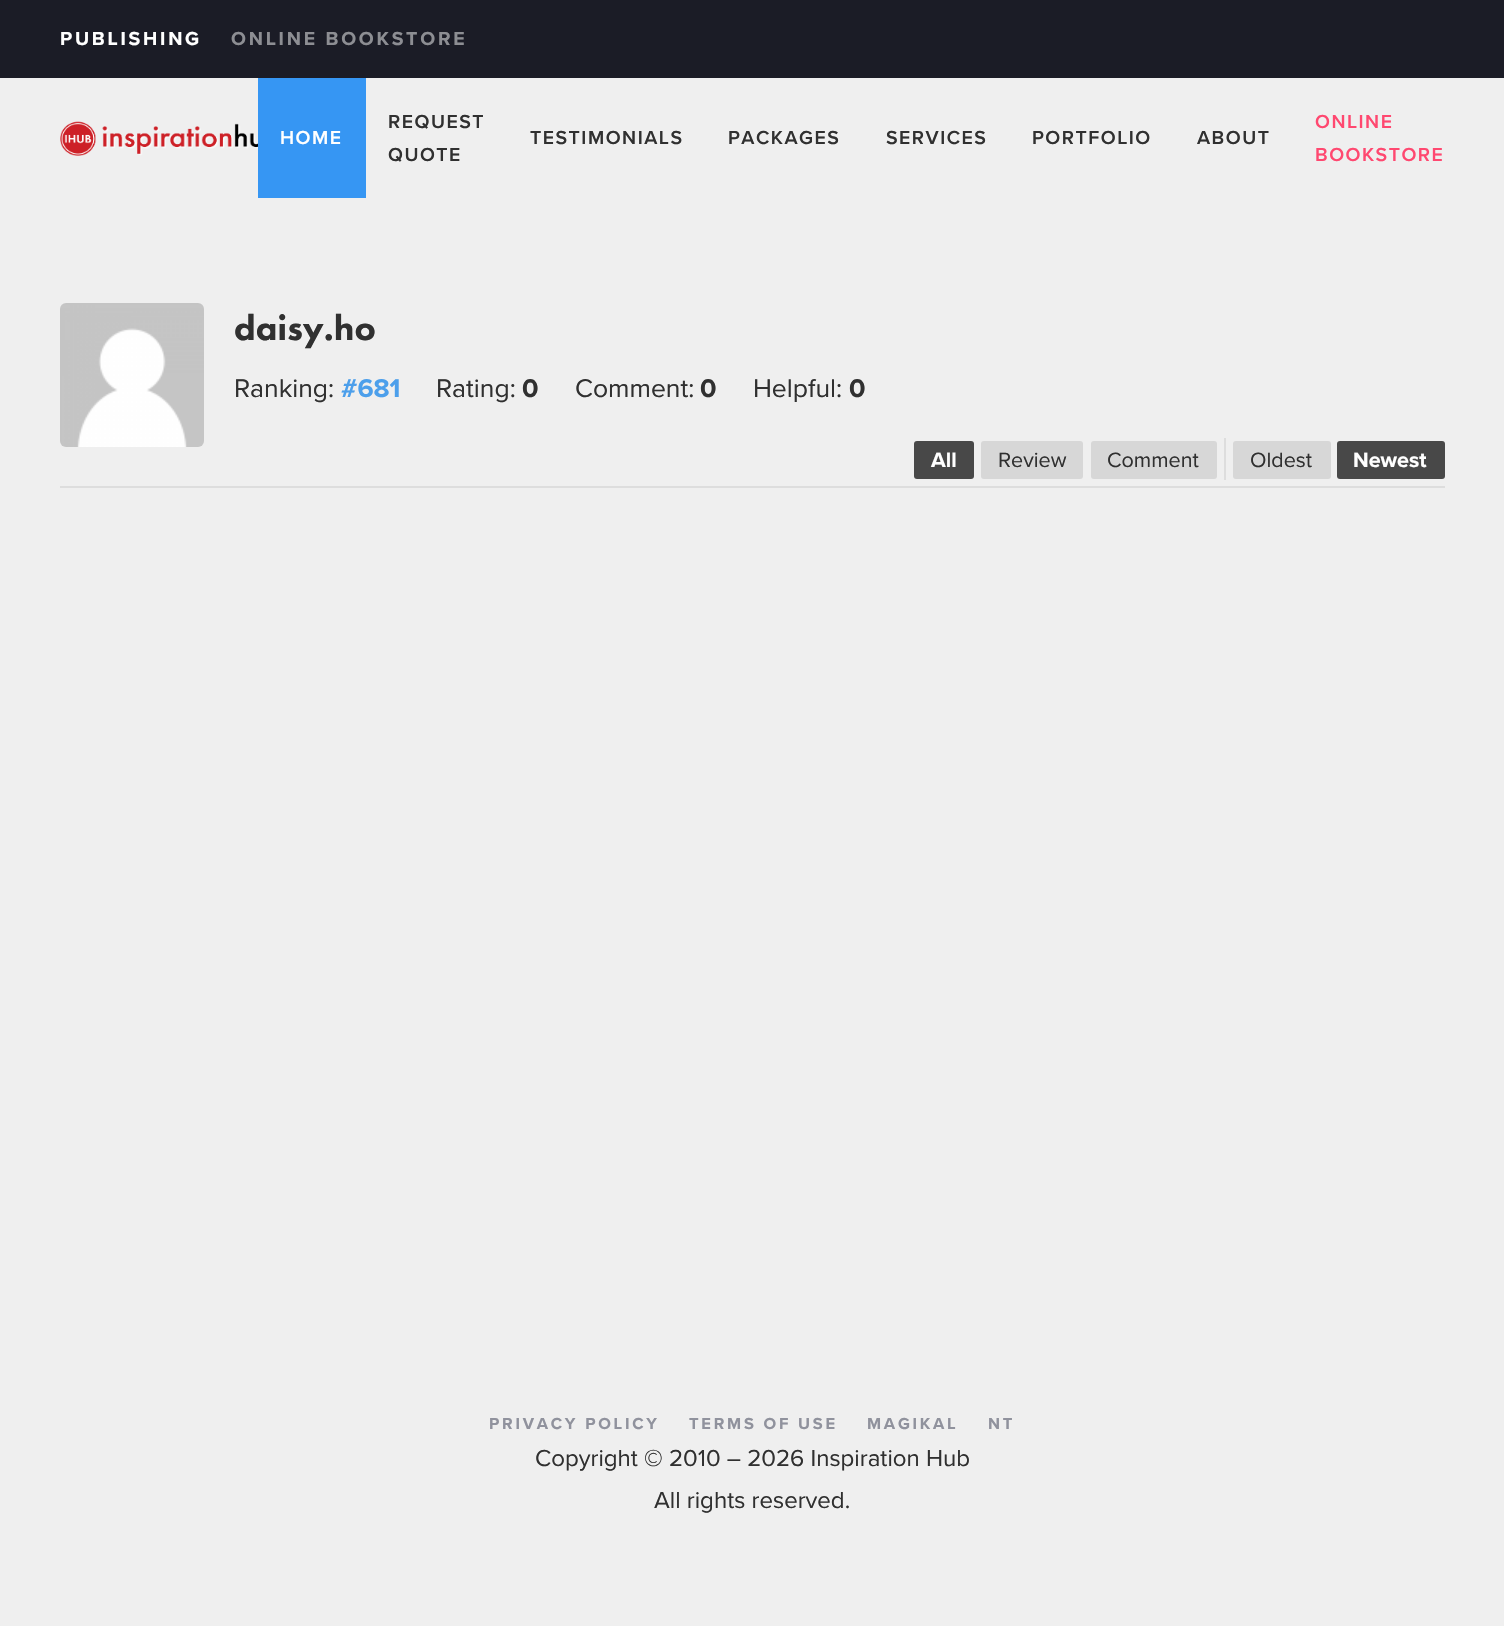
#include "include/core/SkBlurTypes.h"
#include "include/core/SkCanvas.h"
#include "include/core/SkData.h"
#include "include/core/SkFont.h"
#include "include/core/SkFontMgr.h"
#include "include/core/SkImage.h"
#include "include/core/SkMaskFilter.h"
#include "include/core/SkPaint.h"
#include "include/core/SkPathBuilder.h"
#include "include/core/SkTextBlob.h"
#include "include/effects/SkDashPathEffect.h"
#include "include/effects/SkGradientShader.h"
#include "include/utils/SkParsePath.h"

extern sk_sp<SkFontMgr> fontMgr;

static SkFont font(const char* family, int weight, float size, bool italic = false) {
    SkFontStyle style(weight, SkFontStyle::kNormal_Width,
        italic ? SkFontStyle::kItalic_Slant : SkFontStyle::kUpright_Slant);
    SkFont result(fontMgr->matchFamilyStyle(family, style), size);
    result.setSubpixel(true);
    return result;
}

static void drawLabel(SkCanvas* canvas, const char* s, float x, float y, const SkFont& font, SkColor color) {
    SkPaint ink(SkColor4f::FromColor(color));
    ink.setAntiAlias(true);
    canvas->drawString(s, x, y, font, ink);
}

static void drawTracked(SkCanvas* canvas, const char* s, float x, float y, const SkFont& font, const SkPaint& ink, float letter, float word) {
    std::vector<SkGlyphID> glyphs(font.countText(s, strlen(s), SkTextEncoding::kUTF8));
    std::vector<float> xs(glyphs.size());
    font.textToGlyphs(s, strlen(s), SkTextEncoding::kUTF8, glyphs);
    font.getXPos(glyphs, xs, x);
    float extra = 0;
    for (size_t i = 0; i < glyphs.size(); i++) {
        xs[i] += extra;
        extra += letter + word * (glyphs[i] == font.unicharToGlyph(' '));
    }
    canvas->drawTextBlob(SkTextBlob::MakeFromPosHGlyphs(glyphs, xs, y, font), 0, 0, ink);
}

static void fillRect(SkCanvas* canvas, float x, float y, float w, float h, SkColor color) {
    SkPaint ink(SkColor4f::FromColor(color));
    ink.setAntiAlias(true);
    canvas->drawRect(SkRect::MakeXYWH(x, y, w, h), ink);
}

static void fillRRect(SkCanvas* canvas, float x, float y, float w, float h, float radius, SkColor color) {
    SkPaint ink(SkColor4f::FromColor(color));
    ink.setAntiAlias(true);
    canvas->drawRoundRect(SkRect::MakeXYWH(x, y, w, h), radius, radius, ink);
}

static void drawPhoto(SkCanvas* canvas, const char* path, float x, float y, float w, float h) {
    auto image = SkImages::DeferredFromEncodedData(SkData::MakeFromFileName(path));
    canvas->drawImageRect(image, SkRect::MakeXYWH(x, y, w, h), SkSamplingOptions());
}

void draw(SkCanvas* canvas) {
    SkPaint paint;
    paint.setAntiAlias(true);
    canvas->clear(0xFFEFEFEF);
    fillRect(canvas, 0, 0, 1504, 78, 0xFF1B1C26);
    SkFont font1 = font("Proxima Nova", 700, 19.5f);
    paint.setColor(0xFFFFFFFF);
    drawTracked(canvas, "PUBLISHING", 60, 45, font1, paint, 2.75f, 0);
    paint.setColor(0xFF8D8E93);
    drawTracked(canvas, "ONLINE BOOKSTORE", 231, 45, font1, paint, 2.75f, 0);
    drawPhoto(canvas, "assets/img1.png", 60, 121, 198, 35);
    fillRect(canvas, 258, 78, 108, 120, 0xFF3696F3);
    SkFont font2 = font("Proxima Nova", 600, 19.5f);
    paint.setColor(0xFFFFFFFF);
    drawTracked(canvas, "HOME", 280, 144, font2, paint, 1.5f, 0);
    paint.setColor(0xFF303030);
    drawTracked(canvas, "REQUEST", 388, 128, font2, paint, 1.5f, 0);
    drawTracked(canvas, "QUOTE", 388, 161, font2, paint, 1.5f, 0);
    drawTracked(canvas, "TESTIMONIALS", 530, 144, font2, paint, 1.5f, 0);
    drawTracked(canvas, "PACKAGES", 728, 144, font2, paint, 1.5f, 0);
    drawTracked(canvas, "SERVICES", 886, 144, font2, paint, 1.5f, 0);
    drawTracked(canvas, "PORTFOLIO", 1032, 144, font2, paint, 1.5f, 0);
    drawTracked(canvas, "ABOUT", 1197, 144, font2, paint, 1.5f, 0);
    paint.setColor(0xFFFF4870);
    drawTracked(canvas, "ONLINE", 1315, 128, font2, paint, 1.5f, 0);
    drawTracked(canvas, "BOOKSTORE", 1315, 161, font2, paint, 1.5f, 0);
    drawPhoto(canvas, "assets/img2.png", 60, 303, 144, 144);
    SkFont font3 = font("Futura PT", 900, 36);
    drawLabel(canvas, "daisy.ho", 234, 340, font3, 0xFF303030);
    SkFont font4 = font("Proxima Nova", 400, 26.5f);
    drawLabel(canvas, "Ranking:", 234, 397, font4, 0xFF303030);
    SkFont font5 = font("Proxima Nova", 700, 26.5f);
    drawLabel(canvas, "#681", 341, 397, font5, 0xFF4C9FEB);
    drawLabel(canvas, "Rating:", 436, 397, font4, 0xFF303030);
    drawLabel(canvas, "0", 522, 397, font5, 0xFF303030);
    drawLabel(canvas, "Comment:", 575, 397, font4, 0xFF303030);
    drawLabel(canvas, "0", 700, 397, font5, 0xFF303030);
    drawLabel(canvas, "Helpful:", 753, 397, font4, 0xFF303030);
    drawLabel(canvas, "0", 849, 397, font5, 0xFF303030);
    fillRect(canvas, 60, 486, 1385, 2, 0xFFDDDDDD);
    fillRect(canvas, 1224, 438, 2, 42, 0xFFDDDDDD);
    fillRRect(canvas, 914, 441, 60, 38, 3, 0xFF484848);
    SkFont font6 = font("Proxima Nova", 700, 21.5f);
    drawLabel(canvas, "All", 931, 467, font6, 0xFFFFFFFF);
    fillRRect(canvas, 981, 441, 102, 38, 3, 0xFFD7D7D7);
    SkFont font7 = font("Proxima Nova", 400, 21.5f);
    drawLabel(canvas, "Review", 998, 467, font7, 0xFF303030);
    fillRRect(canvas, 1091, 441, 126, 38, 3, 0xFFD7D7D7);
    drawLabel(canvas, "Comment", 1107, 467, font7, 0xFF303030);
    fillRRect(canvas, 1233, 441, 98, 38, 3, 0xFFD7D7D7);
    drawLabel(canvas, "Oldest", 1250, 467, font7, 0xFF303030);
    fillRRect(canvas, 1337, 441, 108, 38, 3, 0xFF484848);
    drawLabel(canvas, "Newest", 1353, 467, font6, 0xFFFFFFFF);
    SkFont font8 = font("Proxima Nova", 700, 16.5f);
    paint.setColor(0xFF90929D);
    drawTracked(canvas, "PRIVACY POLICY", 489, 1429, font8, paint, 2.75f, 0);
    drawTracked(canvas, "TERMS OF USE", 689, 1429, font8, paint, 2.75f, 0);
    drawTracked(canvas, "MAGIKAL", 867, 1429, font8, paint, 2.75f, 0);
    drawTracked(canvas, "NT", 988, 1429, font8, paint, 2.75f, 0);
    SkFont font9 = font("Proxima Nova", 400, 24);
    drawLabel(canvas, "Copyright © 2010 – 2026 Inspiration Hub", 535, 1466, font9, 0xFF303030);
    drawLabel(canvas, "All rights reserved.", 654, 1508, font9, 0xFF303030);
}
